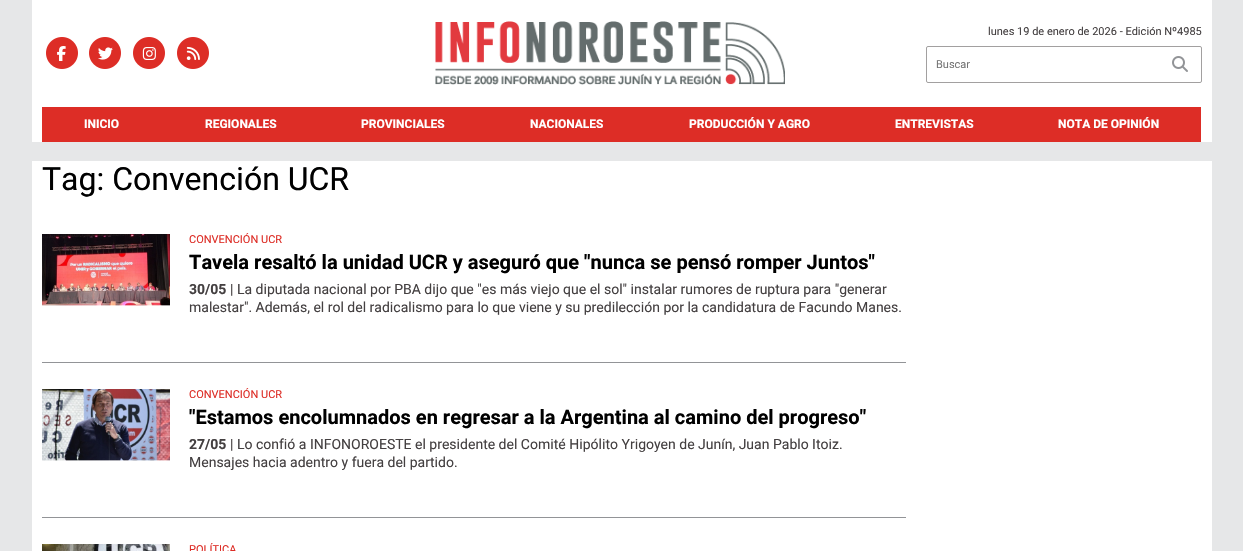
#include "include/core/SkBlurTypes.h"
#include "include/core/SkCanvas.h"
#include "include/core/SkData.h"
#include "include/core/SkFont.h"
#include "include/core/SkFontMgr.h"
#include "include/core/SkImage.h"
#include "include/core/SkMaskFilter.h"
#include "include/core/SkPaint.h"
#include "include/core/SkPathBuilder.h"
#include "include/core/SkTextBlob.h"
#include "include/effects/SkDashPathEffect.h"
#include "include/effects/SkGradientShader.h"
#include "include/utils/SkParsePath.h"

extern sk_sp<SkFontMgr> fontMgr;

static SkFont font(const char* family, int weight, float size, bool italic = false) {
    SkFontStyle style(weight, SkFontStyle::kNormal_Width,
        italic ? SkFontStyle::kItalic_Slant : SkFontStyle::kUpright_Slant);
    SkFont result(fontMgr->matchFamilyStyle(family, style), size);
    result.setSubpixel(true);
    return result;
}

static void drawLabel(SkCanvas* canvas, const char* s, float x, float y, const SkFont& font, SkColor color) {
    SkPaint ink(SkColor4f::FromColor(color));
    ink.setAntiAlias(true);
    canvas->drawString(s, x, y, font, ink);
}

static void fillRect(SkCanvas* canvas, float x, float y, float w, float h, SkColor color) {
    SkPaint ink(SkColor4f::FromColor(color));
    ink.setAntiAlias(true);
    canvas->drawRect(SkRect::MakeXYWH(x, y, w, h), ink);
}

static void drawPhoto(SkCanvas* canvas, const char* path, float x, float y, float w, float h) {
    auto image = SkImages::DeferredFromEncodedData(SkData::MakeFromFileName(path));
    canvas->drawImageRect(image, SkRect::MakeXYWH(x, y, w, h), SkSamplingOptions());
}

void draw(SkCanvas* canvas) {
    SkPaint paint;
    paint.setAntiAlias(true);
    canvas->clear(0xFFE6E7E8);
    fillRect(canvas, 32, 0, 1180, 142, 0xFFFFFFFF);
    drawPhoto(canvas, "assets/img1.png", 46, 37, 32, 32);
    drawPhoto(canvas, "assets/img2.png", 57, 46, 9, 15);
    drawPhoto(canvas, "assets/img1.png", 89, 37, 32, 32);
    drawPhoto(canvas, "assets/img3.png", 98, 47, 15, 13);
    drawPhoto(canvas, "assets/img1.png", 133, 37, 32, 32);
    drawPhoto(canvas, "assets/img4.png", 142, 47, 14, 13);
    drawPhoto(canvas, "assets/img1.png", 177, 37, 32, 32);
    drawPhoto(canvas, "assets/img5.png", 186, 46, 14, 14);
    drawPhoto(canvas, "assets/img6.png", 435, 21, 350, 64);
    SkFont font1 = font("Heebo", 400, 11);
    drawLabel(canvas, "lunes 19 de enero de 2026 - Edición Nº4985", 988, 35, font1, 0xFF444041);
    paint.setStroke(true);
    paint.setStrokeWidth(1);
    paint.setColor(0xFFA2A0A0);
    canvas->drawRoundRect(SkRect::MakeXYWH(926.5f, 46.5f, 275, 36), 1.5f, 1.5f, paint);
    drawLabel(canvas, "Buscar", 936, 68, font1, 0xFF757575);
    drawPhoto(canvas, "assets/img7.png", 1172, 56, 16, 16);
    fillRect(canvas, 42, 107, 1159, 35, 0xFFDD2D26);
    SkFont font2 = font("Heebo", 700, 12);
    drawLabel(canvas, "INICIO", 84, 128, font2, 0xFFFFFFFF);
    drawLabel(canvas, "REGIONALES", 205, 128, font2, 0xFFFFFFFF);
    drawLabel(canvas, "PROVINCIALES", 361, 128, font2, 0xFFFFFFFF);
    drawLabel(canvas, "NACIONALES", 530, 128, font2, 0xFFFFFFFF);
    drawLabel(canvas, "PRODUCCIÓN Y AGRO", 689, 128, font2, 0xFFFFFFFF);
    drawLabel(canvas, "ENTREVISTAS", 895, 128, font2, 0xFFFFFFFF);
    drawLabel(canvas, "NOTA DE OPINIÓN", 1058, 128, font2, 0xFFFFFFFF);
    fillRect(canvas, 32, 161, 1180, 390, 0xFFFFFFFF);
    SkFont font3 = font("Heebo", 400, 32);
    drawLabel(canvas, "Tag: Convención UCR", 42, 190, font3, 0xFF000000);
    fillRect(canvas, 42, 362, 864, 1, 0xFF929497);
    drawPhoto(canvas, "assets/img8.png", 42, 234, 128, 72);
    drawLabel(canvas, "CONVENCIÓN UCR", 189, 243, font1, 0xFFDD2D26);
    SkFont font4 = font("Heebo", 700, 20);
    drawLabel(canvas, "Tavela resaltó la unidad UCR y aseguró que \"nunca se pensó romper Juntos\"", 189, 269, font4, 0xFF000000);
    SkFont font5 = font("Heebo", 700, 14);
    drawLabel(canvas, "30/05", 189, 294, font5, 0xFF444041);
    SkFont font6 = font("Heebo", 400, 14);
    drawLabel(canvas, "| La diputada nacional por PBA dijo que \"es más viejo que el sol\" instalar rumores de ruptura para \"generar", 230, 294, font6, 0xFF444041);
    drawLabel(canvas, "malestar\". Además, el rol del radicalismo para lo que viene y su predilección por la candidatura de Facundo Manes.", 189, 312, font6, 0xFF444041);
    fillRect(canvas, 42, 517, 864, 1, 0xFF929497);
    drawPhoto(canvas, "assets/img9.png", 42, 389, 128, 72);
    drawLabel(canvas, "CONVENCIÓN UCR", 189, 398, font1, 0xFFDD2D26);
    drawLabel(canvas, "\"Estamos encolumnados en regresar a la Argentina al camino del progreso\"", 189, 424, font4, 0xFF000000);
    drawLabel(canvas, "27/05", 189, 449, font5, 0xFF444041);
    drawLabel(canvas, "| Lo confió a INFONOROESTE el presidente del Comité Hipólito Yrigoyen de Junín, Juan Pablo Itoiz.", 230, 449, font6, 0xFF444041);
    drawLabel(canvas, "Mensajes hacia adentro y fuera del partido.", 189, 467, font6, 0xFF444041);
    drawPhoto(canvas, "assets/img10.png", 42, 544, 128, 7);
    drawLabel(canvas, "POLÍTICA", 189, 553, font1, 0xFFDD2D26);
}
